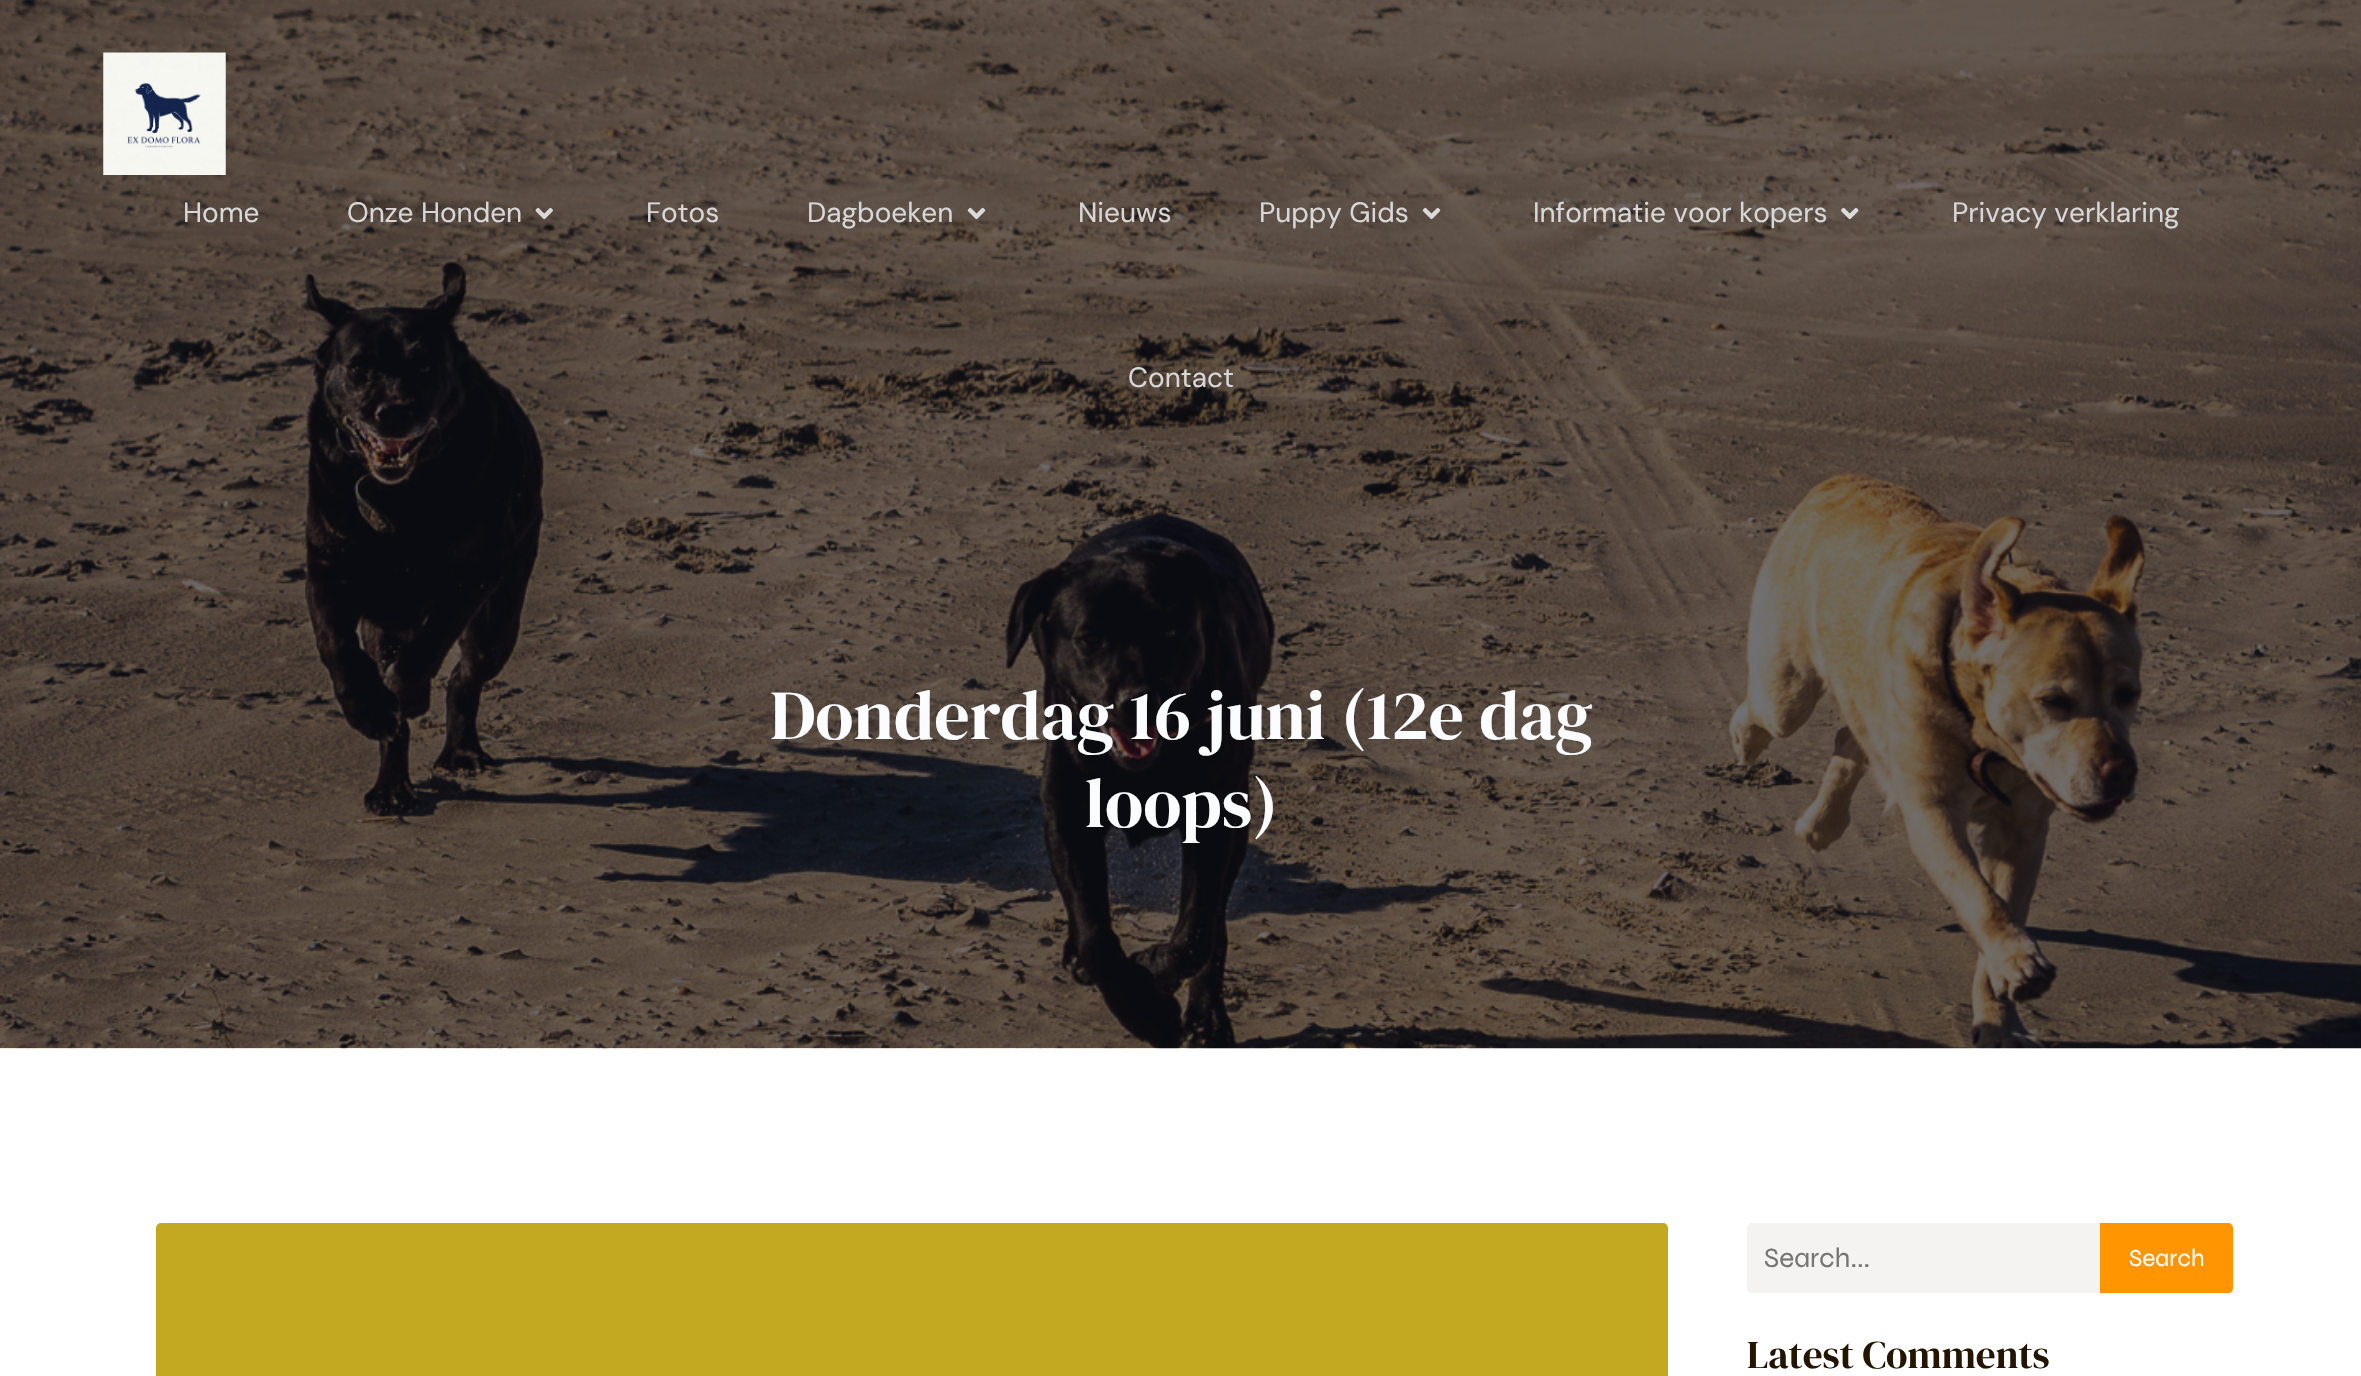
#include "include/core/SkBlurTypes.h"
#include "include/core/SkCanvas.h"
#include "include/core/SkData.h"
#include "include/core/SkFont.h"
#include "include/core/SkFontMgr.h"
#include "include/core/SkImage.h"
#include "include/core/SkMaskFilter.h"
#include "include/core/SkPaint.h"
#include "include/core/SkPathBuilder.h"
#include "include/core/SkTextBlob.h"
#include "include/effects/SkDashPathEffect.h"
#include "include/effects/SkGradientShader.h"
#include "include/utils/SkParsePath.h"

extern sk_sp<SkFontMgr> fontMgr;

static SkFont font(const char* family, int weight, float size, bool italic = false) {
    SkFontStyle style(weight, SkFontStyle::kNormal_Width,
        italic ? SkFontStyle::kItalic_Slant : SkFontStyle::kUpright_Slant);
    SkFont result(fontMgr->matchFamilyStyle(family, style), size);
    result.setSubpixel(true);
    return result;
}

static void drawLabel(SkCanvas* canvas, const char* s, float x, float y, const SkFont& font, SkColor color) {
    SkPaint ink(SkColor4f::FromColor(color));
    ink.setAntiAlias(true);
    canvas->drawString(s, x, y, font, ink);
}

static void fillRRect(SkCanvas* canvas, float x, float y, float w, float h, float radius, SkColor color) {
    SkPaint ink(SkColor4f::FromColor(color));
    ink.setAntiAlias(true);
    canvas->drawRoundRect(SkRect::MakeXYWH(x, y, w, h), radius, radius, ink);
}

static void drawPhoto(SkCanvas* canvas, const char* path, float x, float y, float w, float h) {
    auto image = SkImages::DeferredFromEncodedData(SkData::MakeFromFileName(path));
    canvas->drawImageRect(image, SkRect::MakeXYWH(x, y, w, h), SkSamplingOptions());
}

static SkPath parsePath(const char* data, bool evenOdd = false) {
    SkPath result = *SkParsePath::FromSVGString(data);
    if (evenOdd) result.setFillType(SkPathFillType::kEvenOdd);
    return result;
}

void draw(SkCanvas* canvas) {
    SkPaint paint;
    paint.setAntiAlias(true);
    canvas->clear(0xFFFFFFFF);
    drawPhoto(canvas, "assets/img6.png", 0, 0, 2361, 1049);
    drawPhoto(canvas, "assets/img1.png", 103, 52, 123, 123);
    SkFont font1 = font("DM Sans", 400, 28);
    drawLabel(canvas, "Home", 183, 222, font1, 0xFFD8D7D8);
    drawLabel(canvas, "Onze Honden", 347, 222, font1, 0xFFD8D7D8);
    drawPhoto(canvas, "assets/img2.png", 535, 207, 18, 13);
    drawLabel(canvas, "Fotos", 646, 222, font1, 0xFFD8D7D8);
    drawLabel(canvas, "Dagboeken", 807, 222, font1, 0xFFD8D7D8);
    drawPhoto(canvas, "assets/img3.png", 967, 207, 19, 13);
    drawLabel(canvas, "Nieuws", 1078, 222, font1, 0xFFD8D7D8);
    drawLabel(canvas, "Puppy Gids", 1259, 222, font1, 0xFFD8D7D8);
    drawPhoto(canvas, "assets/img4.png", 1422, 207, 19, 13);
    drawLabel(canvas, "Informatie voor kopers", 1533, 222, font1, 0xFFD8D7D8);
    drawPhoto(canvas, "assets/img5.png", 1841, 207, 18, 13);
    drawLabel(canvas, "Privacy verklaring", 1952, 222, font1, 0xFFD8D7D8);
    drawLabel(canvas, "Contact", 1128, 387, font1, 0xFFD8D7D8);
    SkFont font2 = font("DM Serif Display", 400, 70);
    drawLabel(canvas, "Donderdag 16 juni (12e dag", 770, 739, font2, 0xFFFAFCFF);
    drawLabel(canvas, "loops)", 1085, 827, font2, 0xFFFAFCFF);
    fillRRect(canvas, 156, 1223, 1512, 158, 5, 0xFFC3A822);
    paint.setColor(0xFFF4F3F2);
    canvas->drawPath(parsePath("M1752 1223H2100V1293H1752C1749 1293 1747 1291 1747 1288V1228C1747 1225 1749 1223 1752 1223Z"), paint);
    SkFont font3 = font("Syne", 400, 28);
    drawLabel(canvas, "Search...", 1764, 1267, font3, 0xFF757575);
    paint.setColor(0xFFFF9500);
    canvas->drawPath(parsePath("M2100 1223H2228C2231 1223 2233 1225 2233 1228V1288C2233 1291 2231 1293 2228 1293H2100Z"), paint);
    SkFont font4 = font("Syne", 400, 24.5f);
    drawLabel(canvas, "Search", 2129, 1266, font4, 0xFFFAFCFF);
    SkFont font5 = font("DM Serif Display", 400, 39.25f);
    drawLabel(canvas, "Latest Comments", 1747, 1368, font5, 0xFF241500);
}
